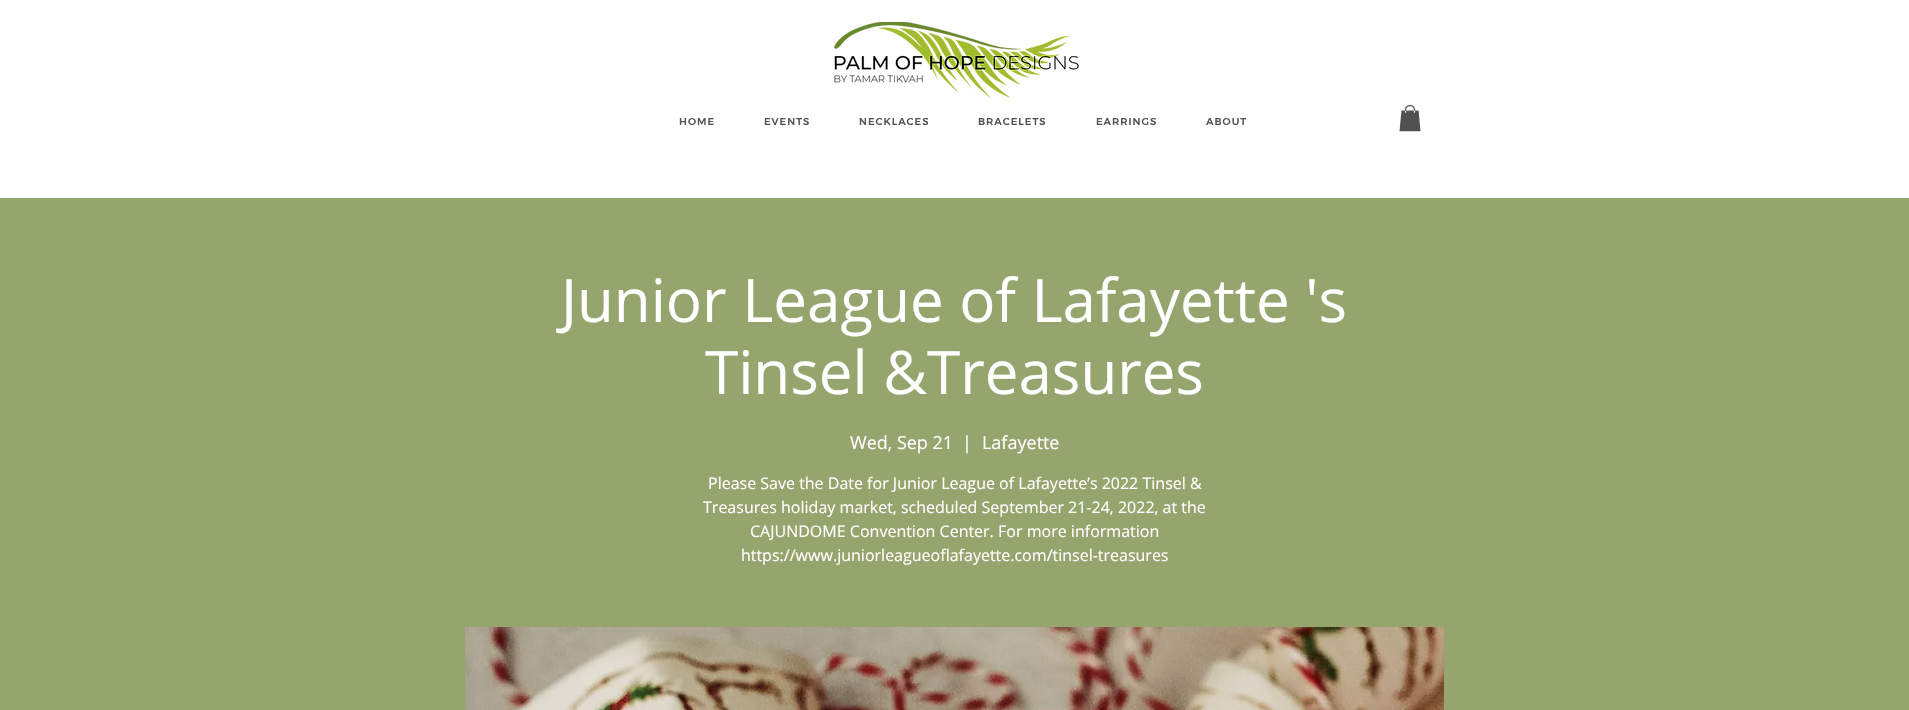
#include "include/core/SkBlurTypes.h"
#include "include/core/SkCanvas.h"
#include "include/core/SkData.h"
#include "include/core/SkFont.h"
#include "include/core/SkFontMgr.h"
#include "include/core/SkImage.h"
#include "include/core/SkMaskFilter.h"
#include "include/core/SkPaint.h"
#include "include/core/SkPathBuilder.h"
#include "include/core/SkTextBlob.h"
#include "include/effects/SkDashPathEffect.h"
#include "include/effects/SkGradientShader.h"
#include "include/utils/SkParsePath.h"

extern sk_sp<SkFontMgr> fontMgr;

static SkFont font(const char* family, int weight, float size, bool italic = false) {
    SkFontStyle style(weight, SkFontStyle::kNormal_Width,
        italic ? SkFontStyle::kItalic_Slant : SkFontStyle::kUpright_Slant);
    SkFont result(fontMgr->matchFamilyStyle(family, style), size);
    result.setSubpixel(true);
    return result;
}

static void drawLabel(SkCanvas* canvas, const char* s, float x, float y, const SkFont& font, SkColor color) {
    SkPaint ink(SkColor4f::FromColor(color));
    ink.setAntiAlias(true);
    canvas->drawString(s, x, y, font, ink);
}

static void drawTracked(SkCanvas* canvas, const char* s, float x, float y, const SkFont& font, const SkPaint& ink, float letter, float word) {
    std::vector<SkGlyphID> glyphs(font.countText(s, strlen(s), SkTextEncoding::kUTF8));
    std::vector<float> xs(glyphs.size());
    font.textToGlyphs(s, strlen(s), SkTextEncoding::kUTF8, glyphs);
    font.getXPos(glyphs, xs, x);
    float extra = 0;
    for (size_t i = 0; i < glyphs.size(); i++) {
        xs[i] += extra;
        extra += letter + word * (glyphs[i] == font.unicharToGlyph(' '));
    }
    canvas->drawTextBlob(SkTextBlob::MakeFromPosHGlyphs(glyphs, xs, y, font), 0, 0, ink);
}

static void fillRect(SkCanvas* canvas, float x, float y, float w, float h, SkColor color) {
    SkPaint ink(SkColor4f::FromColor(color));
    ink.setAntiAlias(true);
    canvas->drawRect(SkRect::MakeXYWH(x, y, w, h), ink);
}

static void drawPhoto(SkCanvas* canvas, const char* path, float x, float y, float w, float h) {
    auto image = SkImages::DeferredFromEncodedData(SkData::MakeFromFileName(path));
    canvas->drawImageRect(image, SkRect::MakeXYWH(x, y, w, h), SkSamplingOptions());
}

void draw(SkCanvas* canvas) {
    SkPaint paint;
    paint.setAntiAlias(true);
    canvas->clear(0xFF95A56D);
    fillRect(canvas, 0, 0, 1909, 198, 0xFFFFFFFF);
    drawPhoto(canvas, "assets/img1.png", 834, 22, 245, 77);
    SkFont font1 = font("Montserrat", 500, 10);
    paint.setColor(0xFF515151);
    drawTracked(canvas, "HOME", 679, 125, font1, paint, 1, 0);
    drawTracked(canvas, "EVENTS", 764, 125, font1, paint, 1, 0);
    drawTracked(canvas, "NECKLACES", 859, 125, font1, paint, 1, 0);
    drawTracked(canvas, "BRACELETS", 978, 125, font1, paint, 1, 0);
    drawTracked(canvas, "EARRINGS", 1096, 125, font1, paint, 1, 0);
    drawTracked(canvas, "ABOUT", 1206, 125, font1, paint, 1, 0);
    drawPhoto(canvas, "assets/img2.png", 1399, 105, 22, 27);
    SkFont font2 = font("Open Sans", 400, 60);
    drawLabel(canvas, "Junior League of Lafayette 's", 561, 322, font2, 0xFFFFFFFF);
    drawLabel(canvas, "Tinsel &Treasures", 705, 394, font2, 0xFFFFFFFF);
    SkFont font3 = font("Open Sans", 400, 18);
    drawLabel(canvas, "Wed, Sep 21", 850, 449, font3, 0xFFFFFFFF);
    drawLabel(canvas, "|", 962, 449, font3, 0xFFFFFFFF);
    drawLabel(canvas, "Lafayette", 982, 449, font3, 0xFFFFFFFF);
    SkFont font4 = font("Open Sans", 400, 16);
    drawLabel(canvas, "Please Save the Date for Junior League of Lafayette’s 2022 Tinsel &", 708, 489, font4, 0xFFFFFFFF);
    drawLabel(canvas, "Treasures holiday market, scheduled September 21-24, 2022, at the", 703, 513, font4, 0xFFFFFFFF);
    drawLabel(canvas, "CAJUNDOME Convention Center. For more information", 750, 537, font4, 0xFFFFFFFF);
    drawLabel(canvas, "https://www.juniorleagueoflafayette.com/tinsel-treasures", 741, 561, font4, 0xFFFFFFFF);
    drawPhoto(canvas, "assets/img3.png", 465, 627, 979, 83);
}
